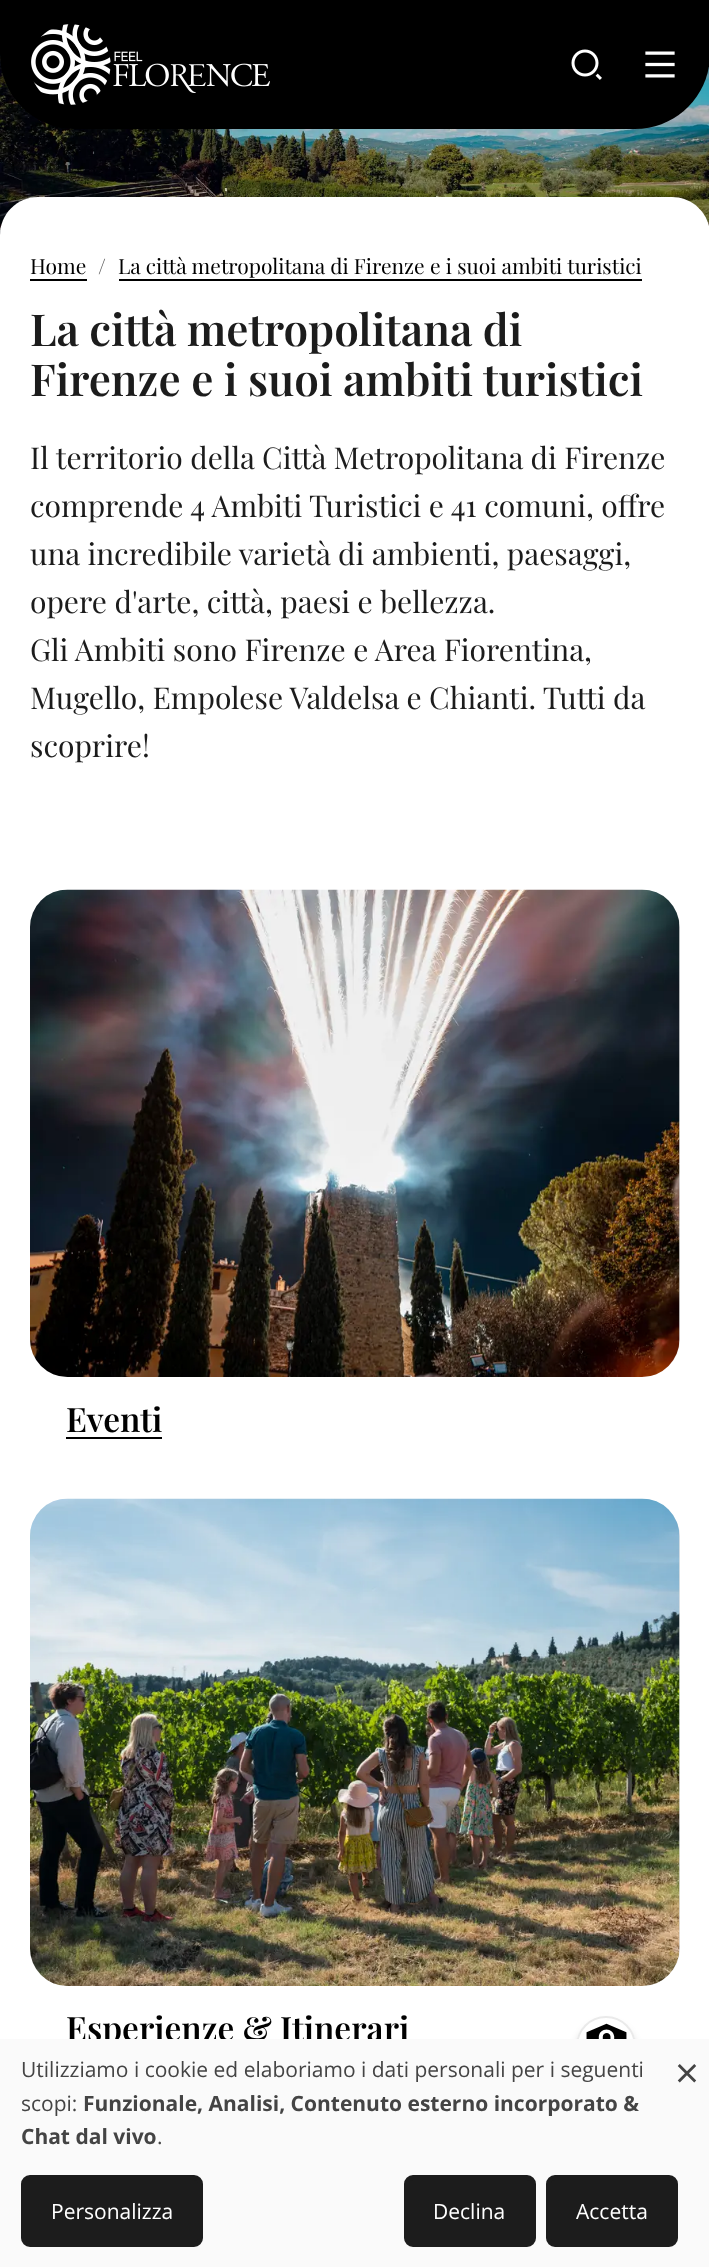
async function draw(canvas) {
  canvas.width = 709
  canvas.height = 2267
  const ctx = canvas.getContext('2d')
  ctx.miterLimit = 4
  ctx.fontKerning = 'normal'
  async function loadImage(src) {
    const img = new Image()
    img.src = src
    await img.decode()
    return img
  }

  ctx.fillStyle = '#fff'
  ctx.fillRect(0, 0, 709, 2267)
  ctx.drawImage(await loadImage('image3.png'), 0, 54, 709, 181)
  ctx.fillStyle = '#000'
  ctx.beginPath()
  ctx.moveTo(0, 0)
  ctx.lineTo(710, 0)
  ctx.lineTo(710, 54)
  ctx.bezierCurveTo(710, 95.5, 676.5, 129, 635, 129)
  ctx.lineTo(75, 129)
  ctx.bezierCurveTo(33.5, 129, 0, 95.5, 0, 54)
  ctx.closePath()
  ctx.fill()
  ctx.drawImage(await loadImage('image0.png'), 31, 24, 239, 81)
  ctx.drawImage(await loadImage('image1.png'), 571, 49, 31, 31)
  ctx.drawImage(await loadImage('image2.png'), 645, 51, 30, 27)
  ctx.fillStyle = '#fff'
  ctx.beginPath()
  ctx.moveTo(38, 197)
  ctx.lineTo(672, 197)
  ctx.bezierCurveTo(693, 197, 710, 214, 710, 235)
  ctx.lineTo(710, 806)
  ctx.lineTo(0, 806)
  ctx.lineTo(0, 235)
  ctx.bezierCurveTo(0, 214, 17, 197, 38, 197)
  ctx.closePath()
  ctx.fill()
  ctx.font = '21px Playfair Display'
  ctx.fillStyle = '#000'
  ctx.fillText('Home', 30, 274)
  ctx.fillRect(30, 279, 57, 2)
  ctx.fillStyle = '#555'
  ctx.fillText('/', 98, 274)
  ctx.fillStyle = '#000'
  ctx.fillText('La città metropolitana di Firenze e i suoi ambiti turistici', 118, 274)
  ctx.fillRect(119, 279, 523, 2)
  ctx.font = '600 44px Playfair Display'
  ctx.fillStyle = '#1c1c1c'
  ctx.fillText('La città metropolitana di', 30, 346)
  ctx.fillText('Firenze e i suoi ambiti turistici', 30, 396)
  ctx.font = '30px Playfair Display'
  ctx.fillText('Il territorio della Città Metropolitana di Firenze', 30, 469)
  ctx.fillText('comprende 4 Ambiti Turistici e 41 comuni, offre', 30, 517)
  ctx.fillText('una incredibile varietà di ambienti, paesaggi,', 30, 565)
  ctx.fillText('opere d\'arte, città, paesi e bellezza.', 30, 613)
  ctx.fillText('Gli Ambiti sono Firenze e Area Fiorentina,', 30, 661)
  ctx.fillText('Mugello, Empolese Valdelsa e Chianti. Tutti da', 30, 709)
  ctx.fillText('scoprire!', 30, 757)
  ctx.fillStyle = '#e7e7e7'
  ctx.beginPath()
  ctx.roundRect(30, 890, 650, 487, 38)
  ctx.fill()
  ctx.drawImage(await loadImage('image4.png'), 30, 889, 650, 488)
  ctx.font = '600 33.5px Playfair Display'
  ctx.fillStyle = '#000'
  ctx.fillText('Eventi', 66, 1432)
  ctx.fillRect(66, 1437, 96, 2)
  ctx.fillStyle = '#e7e7e7'
  ctx.beginPath()
  ctx.roundRect(30, 1499, 650, 487, 38)
  ctx.fill()
  ctx.drawImage(await loadImage('image5.png'), 30, 1498, 650, 488)
  ctx.fillStyle = '#000'
  ctx.fillText('Esperienze & Itinerari', 66, 2041)
  ctx.fillStyle = '#00000033'
  ctx.filter = 'blur(4px)'
  ctx.beginPath()
  ctx.roundRect(576, 2024, 60, 60, 30)
  ctx.fill()
  ctx.filter = 'none'
  ctx.fillStyle = '#fff'
  ctx.beginPath()
  ctx.arc(606, 2046, 30, 0, 2 * Math.PI)
  ctx.fill()
  ctx.drawImage(await loadImage('image6.png'), 586, 2023, 41, 16)
  ctx.beginPath()
  ctx.arc(606, 2046, 29, 0, 2 * Math.PI)
  ctx.strokeStyle = '#eaeaea'
  ctx.lineWidth = 2
  ctx.stroke()
  ctx.fillStyle = '#fafafa'
  ctx.fillRect(0, 2039, 709, 228)
  ctx.font = '21px Open Sans'
  ctx.fillStyle = '#444'
  ctx.fillText('Utilizziamo i cookie ed elaboriamo i dati personali per i seguenti', 21, 2077)
  ctx.fillText('scopi:', 21, 2111)
  ctx.font = 'bold 21px Open Sans'
  ctx.fillText('Funzionale, Analisi, Contenuto esterno incorporato &', 83, 2111)
  ctx.fillText('Chat dal vivo', 21, 2144)
  ctx.font = '21px Open Sans'
  ctx.fillText('.', 157, 2144)
  ctx.fillStyle = '#1c1c1c'
  ctx.beginPath()
  ctx.roundRect(23.5, 2177.5, 177, 67, 6.5)
  ctx.fill()
  ctx.strokeStyle = '#1c1c1c'
  ctx.lineWidth = 5
  ctx.stroke()
  ctx.fillStyle = '#fff'
  ctx.fillText('Personalizza', 51, 2219)
  ctx.fillStyle = '#1c1c1c'
  ctx.beginPath()
  ctx.roundRect(406.5, 2177.5, 127, 67, 6.5)
  ctx.fill()
  ctx.stroke()
  ctx.fillStyle = '#fff'
  ctx.fillText('Declina', 433, 2219)
  ctx.fillStyle = '#1c1c1c'
  ctx.beginPath()
  ctx.roundRect(548.5, 2177.5, 127, 67, 6.5)
  ctx.fill()
  ctx.stroke()
  ctx.fillStyle = '#fff'
  ctx.fillText('Accetta', 576, 2219)
  ctx.font = '42px Open Sans'
  ctx.fillStyle = '#444'
  ctx.fillText('×', 675, 2088)
}

draw(document.querySelector('canvas'))
